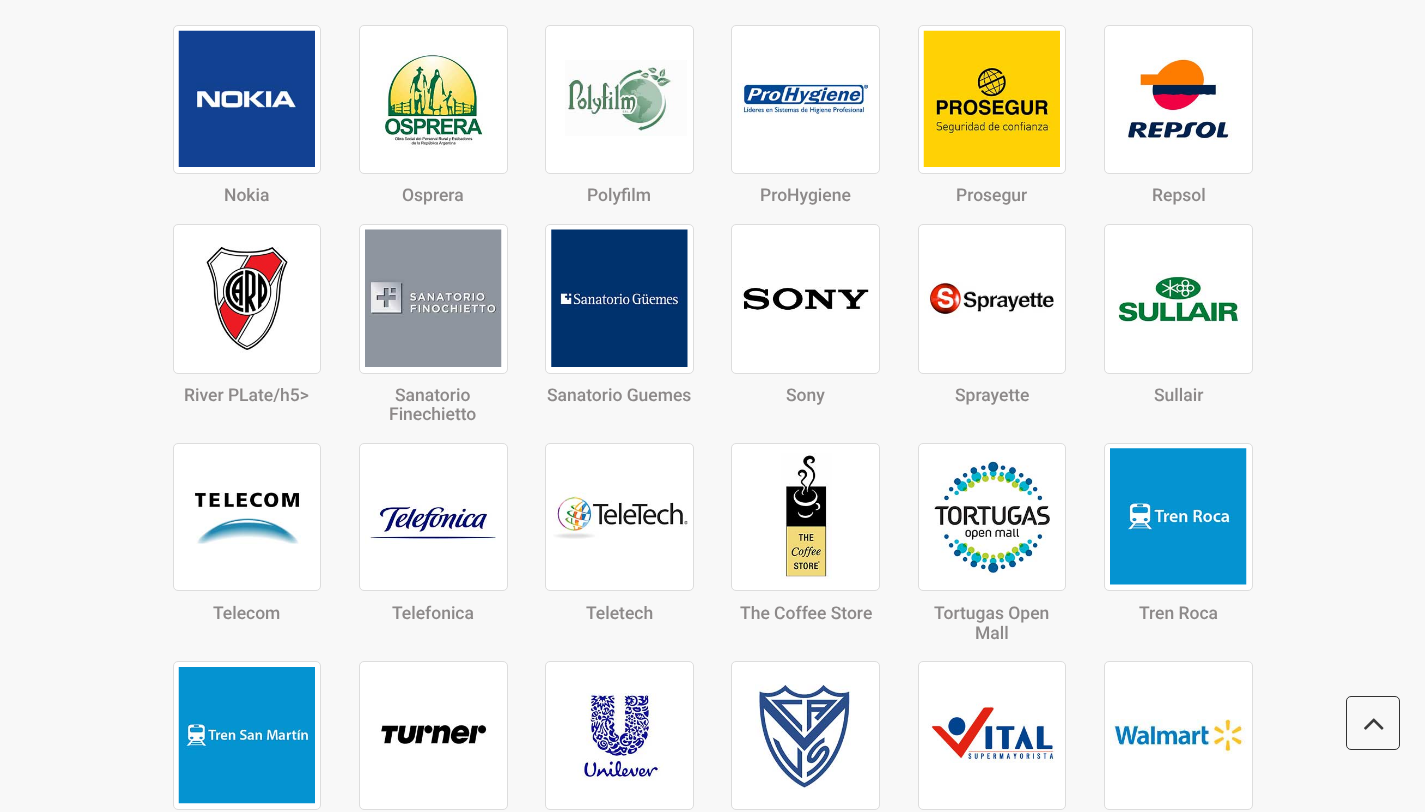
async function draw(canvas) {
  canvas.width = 1425
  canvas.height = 812
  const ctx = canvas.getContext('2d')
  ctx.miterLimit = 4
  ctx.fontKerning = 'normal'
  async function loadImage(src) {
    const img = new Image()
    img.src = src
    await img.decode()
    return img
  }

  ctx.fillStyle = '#f8f8f8'
  ctx.fillRect(0, 0, 1425, 812)
  ctx.fillStyle = '#fff'
  ctx.beginPath()
  ctx.roundRect(173.5, 25.5, 147, 148, 4.5)
  ctx.fill()
  ctx.strokeStyle = '#ddd'
  ctx.stroke()
  ctx.drawImage(await loadImage('image0.png'), 178, 30, 137, 137)
  ctx.font = '500 17.5px Roboto'
  ctx.fillStyle = '#8c8989'
  ctx.fillText('Nokia', 224, 201)
  ctx.fillStyle = '#fff'
  ctx.beginPath()
  ctx.roundRect(359.5, 25.5, 148, 148, 4.5)
  ctx.fill()
  ctx.stroke()
  ctx.drawImage(await loadImage('image1.png'), 382, 50, 105, 99)
  ctx.fillStyle = '#8c8989'
  ctx.fillText('Osprera', 402, 201)
  ctx.fillStyle = '#fff'
  ctx.beginPath()
  ctx.roundRect(545.5, 25.5, 148, 148, 4.5)
  ctx.fill()
  ctx.stroke()
  ctx.drawImage(await loadImage('image2.png'), 565, 60, 122, 76)
  ctx.fillStyle = '#8c8989'
  ctx.fillText('Polyfilm', 587, 201)
  ctx.fillStyle = '#fff'
  ctx.beginPath()
  ctx.roundRect(731.5, 25.5, 148, 148, 4.5)
  ctx.fill()
  ctx.stroke()
  ctx.drawImage(await loadImage('image3.png'), 737, 83, 132, 35)
  ctx.fillStyle = '#8c8989'
  ctx.fillText('ProHygiene', 760, 201)
  ctx.fillStyle = '#fff'
  ctx.beginPath()
  ctx.roundRect(918.5, 25.5, 147, 148, 4.5)
  ctx.fill()
  ctx.stroke()
  ctx.drawImage(await loadImage('image4.png'), 923, 30, 137, 137)
  ctx.fillStyle = '#8c8989'
  ctx.fillText('Prosegur', 956, 201)
  ctx.fillStyle = '#fff'
  ctx.beginPath()
  ctx.roundRect(1104.5, 25.5, 148, 148, 4.5)
  ctx.fill()
  ctx.stroke()
  ctx.drawImage(await loadImage('image5.png'), 1127, 57, 105, 87)
  ctx.fillStyle = '#8c8989'
  ctx.fillText('Repsol', 1152, 201)
  ctx.fillStyle = '#fff'
  ctx.beginPath()
  ctx.roundRect(173.5, 224.5, 147, 149, 4.5)
  ctx.fill()
  ctx.stroke()
  ctx.drawImage(await loadImage('image6.png'), 205, 246, 83, 107)
  ctx.fillStyle = '#8c8989'
  ctx.fillText('River PLate/h5>', 184, 401)
  ctx.fillStyle = '#fff'
  ctx.beginPath()
  ctx.roundRect(359.5, 224.5, 148, 149, 4.5)
  ctx.fill()
  ctx.stroke()
  ctx.drawImage(await loadImage('image7.png'), 365, 229, 137, 138)
  ctx.fillStyle = '#8c8989'
  ctx.fillText('Sanatorio', 395, 401)
  ctx.fillText('Finechietto', 389, 420)
  ctx.fillStyle = '#fff'
  ctx.beginPath()
  ctx.roundRect(545.5, 224.5, 148, 149, 4.5)
  ctx.fill()
  ctx.stroke()
  ctx.drawImage(await loadImage('image8.png'), 551, 229, 137, 138)
  ctx.fillStyle = '#8c8989'
  ctx.fillText('Sanatorio Guemes', 547, 401)
  ctx.fillStyle = '#fff'
  ctx.beginPath()
  ctx.roundRect(731.5, 224.5, 148, 149, 4.5)
  ctx.fill()
  ctx.stroke()
  ctx.drawImage(await loadImage('image9.png'), 742, 287, 127, 25)
  ctx.fillStyle = '#8c8989'
  ctx.fillText('Sony', 786, 401)
  ctx.fillStyle = '#fff'
  ctx.beginPath()
  ctx.roundRect(918.5, 224.5, 147, 149, 4.5)
  ctx.fill()
  ctx.stroke()
  ctx.drawImage(await loadImage('image10.png'), 924, 282, 130, 36)
  ctx.fillStyle = '#8c8989'
  ctx.fillText('Sprayette', 955, 401)
  ctx.fillStyle = '#fff'
  ctx.beginPath()
  ctx.roundRect(1104.5, 224.5, 148, 149, 4.5)
  ctx.fill()
  ctx.stroke()
  ctx.drawImage(await loadImage('image11.png'), 1118, 273, 123, 53)
  ctx.fillStyle = '#8c8989'
  ctx.fillText('Sullair', 1154, 401)
  ctx.fillStyle = '#fff'
  ctx.beginPath()
  ctx.roundRect(173.5, 443.5, 147, 147, 4.5)
  ctx.fill()
  ctx.stroke()
  ctx.drawImage(await loadImage('image12.png'), 192, 492, 109, 52)
  ctx.fillStyle = '#8c8989'
  ctx.fillText('Telecom', 213, 619)
  ctx.fillStyle = '#fff'
  ctx.beginPath()
  ctx.roundRect(359.5, 443.5, 148, 147, 4.5)
  ctx.fill()
  ctx.stroke()
  ctx.drawImage(await loadImage('image13.png'), 365, 501, 131, 43)
  ctx.fillStyle = '#8c8989'
  ctx.fillText('Telefonica', 392, 619)
  ctx.fillStyle = '#fff'
  ctx.beginPath()
  ctx.roundRect(545.5, 443.5, 148, 147, 4.5)
  ctx.fill()
  ctx.stroke()
  ctx.drawImage(await loadImage('image14.png'), 553, 492, 135, 47)
  ctx.fillStyle = '#8c8989'
  ctx.fillText('Teletech', 586, 619)
  ctx.fillStyle = '#fff'
  ctx.beginPath()
  ctx.roundRect(731.5, 443.5, 148, 147, 4.5)
  ctx.fill()
  ctx.stroke()
  ctx.drawImage(await loadImage('image15.png'), 781, 453, 51, 126)
  ctx.fillStyle = '#8c8989'
  ctx.fillText('The Coffee Store', 740, 619)
  ctx.fillStyle = '#fff'
  ctx.beginPath()
  ctx.roundRect(918.5, 443.5, 147, 147, 4.5)
  ctx.fill()
  ctx.stroke()
  ctx.drawImage(await loadImage('image16.png'), 932, 457, 118, 122)
  ctx.fillStyle = '#8c8989'
  ctx.fillText('Tortugas Open', 934, 619)
  ctx.fillText('Mall', 975, 639)
  ctx.fillStyle = '#fff'
  ctx.beginPath()
  ctx.roundRect(1104.5, 443.5, 148, 147, 4.5)
  ctx.fill()
  ctx.stroke()
  ctx.drawImage(await loadImage('image17.png'), 1110, 448, 137, 137)
  ctx.fillStyle = '#8c8989'
  ctx.fillText('Tren Roca', 1139, 619)
  ctx.fillStyle = '#fff'
  ctx.beginPath()
  ctx.roundRect(173.5, 661.5, 147, 148, 4.5)
  ctx.fill()
  ctx.stroke()
  ctx.drawImage(await loadImage('image18.png'), 178, 667, 137, 137)
  ctx.beginPath()
  ctx.roundRect(359.5, 661.5, 148, 148, 4.5)
  ctx.fill()
  ctx.stroke()
  ctx.drawImage(await loadImage('image19.png'), 379, 724, 108, 22)
  ctx.beginPath()
  ctx.roundRect(545.5, 661.5, 148, 148, 4.5)
  ctx.fill()
  ctx.stroke()
  ctx.drawImage(await loadImage('image20.png'), 577, 693, 87, 88)
  ctx.beginPath()
  ctx.roundRect(731.5, 661.5, 148, 148, 4.5)
  ctx.fill()
  ctx.stroke()
  ctx.drawImage(await loadImage('image21.png'), 755, 684, 96, 105)
  ctx.beginPath()
  ctx.roundRect(918.5, 661.5, 147, 148, 4.5)
  ctx.fill()
  ctx.stroke()
  ctx.drawImage(await loadImage('image22.png'), 928, 702, 127, 61)
  ctx.beginPath()
  ctx.roundRect(1104.5, 661.5, 148, 148, 4.5)
  ctx.fill()
  ctx.stroke()
  ctx.drawImage(await loadImage('image23.png'), 1110, 719, 137, 36)
  ctx.beginPath()
  ctx.roundRect(1346.5, 696.5, 53, 53, 4.5)
  ctx.strokeStyle = '#333'
  ctx.stroke()
  ctx.drawImage(await loadImage('image24.png'), 1364, 718, 20, 12)
}

draw(document.querySelector('canvas'))
